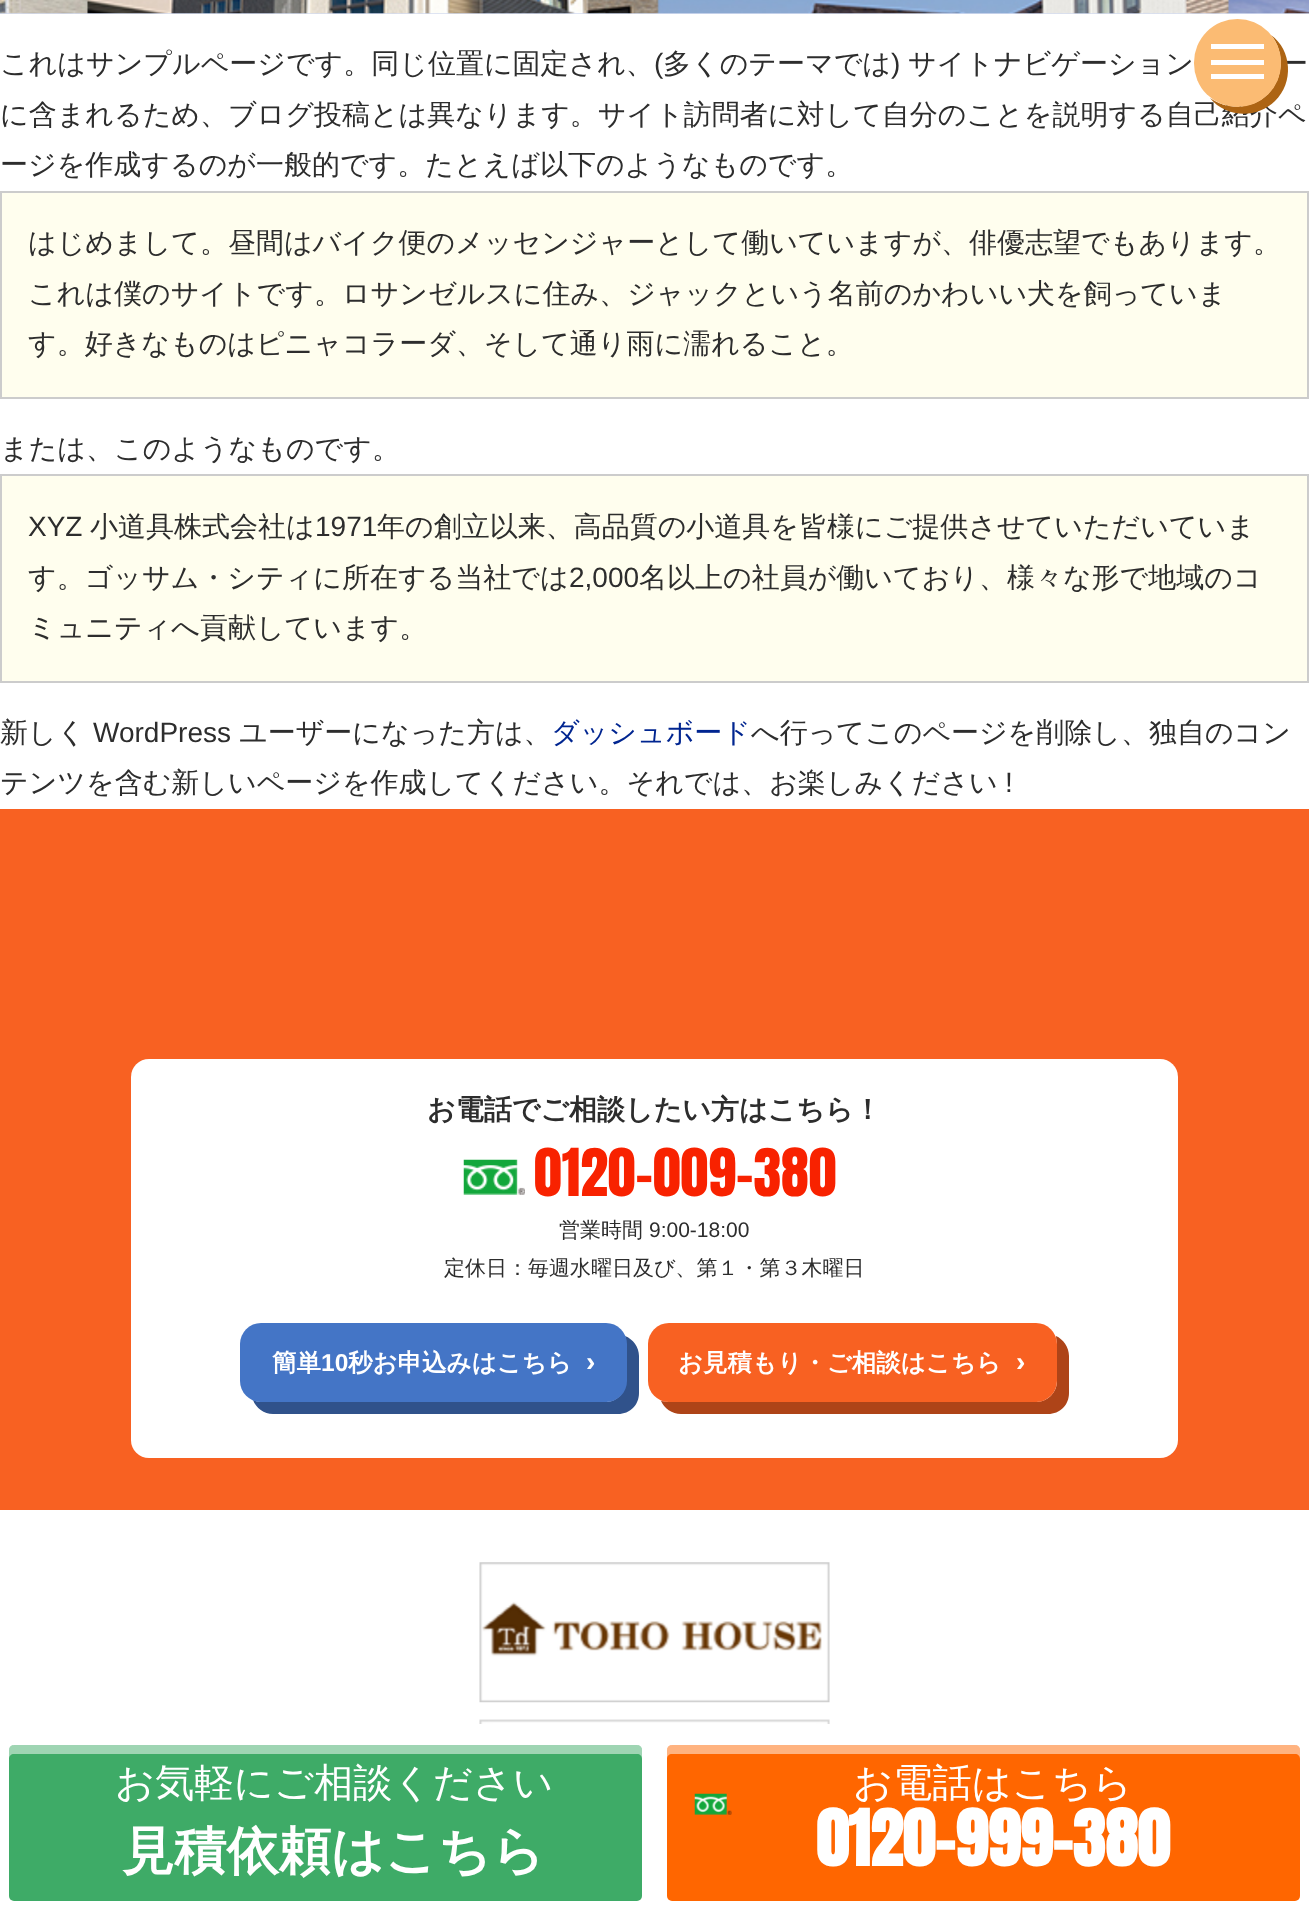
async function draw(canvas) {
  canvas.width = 1309
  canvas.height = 1909
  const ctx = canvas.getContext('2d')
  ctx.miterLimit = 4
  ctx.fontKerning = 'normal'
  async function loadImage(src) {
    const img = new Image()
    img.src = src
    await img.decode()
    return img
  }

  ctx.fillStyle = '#fff'
  ctx.fillRect(0, 0, 1309, 1909)
  ctx.fillStyle = '#d5dcf1'
  ctx.fillRect(0, 13, 1309, 1)
  ctx.drawImage(await loadImage('image0.png'), 0, 0, 1309, 14)
  ctx.font = '500 28px WenQuanYi Zen Hei'
  ctx.fillStyle = '#2d2d2d'
  ctx.fillText('ー', 1280, 73)
  ctx.fillText('に含まれるため、ブログ投稿とは異なります。サイト訪問者に対して自分のことを説明する自己紹介ペ', 0, 124)
  ctx.fillStyle = '#ad6413'
  ctx.beginPath()
  ctx.moveTo(1210, 98)
  ctx.bezierCurveTo(1226, 118, 1257, 119, 1275, 101)
  ctx.bezierCurveTo(1294, 83, 1292, 50, 1271, 35)
  ctx.bezierCurveTo(1285, 52, 1284, 78, 1268, 94)
  ctx.bezierCurveTo(1253, 109, 1228, 111, 1210, 98)
  ctx.closePath()
  ctx.fill()
  ctx.fillStyle = '#fbbb73'
  ctx.beginPath()
  ctx.roundRect(1194, 19, 87, 88, 43.5)
  ctx.fill()
  ctx.fillStyle = '#fff'
  ctx.fillRect(1211, 44, 53, 5)
  ctx.fillRect(1211, 60, 53, 5)
  ctx.fillRect(1211, 74, 53, 5)
  ctx.fillStyle = '#2d2d2d'
  ctx.fillText('これはサンプルページです。同じ位置に固定され、', 0, 73)
  ctx.font = '28px Liberation Sans'
  ctx.fillText('(', 654, 73)
  ctx.font = '500 28px WenQuanYi Zen Hei'
  ctx.fillText('多くのテーマでは', 663, 73)
  ctx.font = '28px Liberation Sans'
  ctx.fillText(')', 891, 73)
  ctx.font = '500 28px WenQuanYi Zen Hei'
  ctx.fillText('サイトナビゲーション', 908, 73)
  ctx.fillText('ージを作成するのが一般的です。たとえば以下のようなものです。', 0, 174)
  ctx.fillStyle = '#fffeee'
  ctx.beginPath()
  ctx.rect(1, 192, 1307, 206)
  ctx.fill()
  ctx.strokeStyle = '#ccc'
  ctx.lineWidth = 2
  ctx.stroke()
  ctx.fillStyle = '#2d2d2d'
  ctx.fillText('はじめまして。昼間はバイク便のメッセンジャーとして働いていますが、俳優志望でもあります。', 28, 252)
  ctx.fillText('これは僕のサイトです。ロサンゼルスに住み、ジャックという名前のかわいい犬を飼っていま', 28, 303)
  ctx.fillText('す。好きなものはピニャコラーダ、そして通り雨に濡れること。', 28, 353)
  ctx.fillText('または、このようなものです。', 0, 458)
  ctx.fillStyle = '#fffeee'
  ctx.beginPath()
  ctx.rect(1, 475, 1307, 207)
  ctx.fill()
  ctx.stroke()
  ctx.font = '28px Liberation Sans'
  ctx.fillStyle = '#2d2d2d'
  ctx.fillText('XYZ', 28, 536)
  ctx.font = '500 28px WenQuanYi Zen Hei'
  ctx.fillText('小道具株式会社は', 90, 536)
  ctx.font = '28px Liberation Sans'
  ctx.fillText('1971', 315, 536)
  ctx.font = '500 28px WenQuanYi Zen Hei'
  ctx.fillText('年の創立以来、高品質の小道具を皆様にご提供させていただいていま', 377, 536)
  ctx.fillText('す。ゴッサム・シティに所在する当社では', 28, 587)
  ctx.font = '28px Liberation Sans'
  ctx.fillText('2,000', 569, 587)
  ctx.font = '500 28px WenQuanYi Zen Hei'
  ctx.fillText('名以上の社員が働いており、様々な形で地域のコ', 639, 587)
  ctx.fillText('ミュニティへ貢献しています。', 28, 637)
  ctx.fillText('新しく', 0, 742)
  ctx.font = '28px Liberation Sans'
  ctx.fillText('WordPress', 93, 742)
  ctx.font = '500 28px WenQuanYi Zen Hei'
  ctx.fillText('ユーザーになった方は、', 239, 742)
  ctx.fillStyle = '#002590'
  ctx.fillText('ダッシュボード', 551, 742)
  ctx.fillStyle = '#2d2d2d'
  ctx.fillText('へ行ってこのページを削除し、独自のコン', 751, 742)
  ctx.fillText('テンツを含む新しいページを作成してください。それでは、お楽しみください', 0, 792)
  ctx.font = '28px Liberation Sans'
  ctx.fillText('!', 1005, 792)
  ctx.fillStyle = '#f86122'
  ctx.fillRect(0, 809, 1309, 701)
  ctx.fillStyle = '#fff'
  ctx.beginPath()
  ctx.roundRect(131, 1059, 1047, 399, 18)
  ctx.fill()
  ctx.font = 'bold 28px WenQuanYi Zen Hei'
  ctx.fillStyle = '#2d2d2d'
  ctx.fillText('お電話でご相談したい方はこちら！', 427, 1119)
  ctx.drawImage(await loadImage('image1.png'), 463, 1159, 62, 36)
  ctx.font = '56px Anton'
  ctx.fillStyle = '#f82200'
  ctx.fillText('0120-009-380', 534, 1196)
  ctx.font = '500 21px WenQuanYi Zen Hei'
  ctx.fillStyle = '#2d2d2d'
  ctx.fillText('営業時間', 559, 1237)
  ctx.font = '21px Liberation Sans'
  ctx.fillText('9:00-18:00', 649, 1237)
  ctx.font = '500 21px WenQuanYi Zen Hei'
  ctx.fillText('定休日：毎週水曜日及び、第１・第３木曜日', 444, 1275)
  ctx.fillStyle = '#30528b'
  ctx.beginPath()
  ctx.moveTo(253, 1400)
  ctx.bezierCurveTo(256, 1408, 264, 1414, 273, 1414)
  ctx.lineTo(618, 1414)
  ctx.bezierCurveTo(630, 1414, 639, 1405, 639, 1393)
  ctx.lineTo(639, 1356)
  ctx.bezierCurveTo(639, 1347, 633, 1339, 625, 1336)
  ctx.bezierCurveTo(626, 1339, 626, 1341, 626, 1344)
  ctx.lineTo(626, 1381)
  ctx.bezierCurveTo(626, 1392, 617, 1402, 606, 1402)
  ctx.lineTo(261, 1402)
  ctx.bezierCurveTo(258, 1402, 256, 1401, 253, 1400)
  ctx.closePath()
  ctx.fill()
  ctx.fillStyle = '#4475c6'
  ctx.beginPath()
  ctx.roundRect(240, 1323, 387, 79, 21)
  ctx.fill()
  ctx.font = 'bold 24.5px WenQuanYi Zen Hei'
  ctx.fillStyle = '#fff'
  ctx.fillText('簡単', 272, 1371)
  ctx.font = 'bold 24.5px Liberation Sans'
  ctx.fillText('10', 321, 1371)
  ctx.font = 'bold 24.5px WenQuanYi Zen Hei'
  ctx.fillText('秒お申込みはこちら', 348, 1371)
  ctx.font = 'bold 28px Liberation Sans'
  ctx.fillText('›', 586, 1371)
  ctx.fillStyle = '#ae4418'
  ctx.beginPath()
  ctx.moveTo(661, 1401)
  ctx.bezierCurveTo(664, 1408, 672, 1414, 681, 1414)
  ctx.lineTo(1048, 1414)
  ctx.bezierCurveTo(1060, 1414, 1069, 1405, 1069, 1393)
  ctx.lineTo(1069, 1356)
  ctx.bezierCurveTo(1069, 1347, 1063, 1339, 1056, 1336)
  ctx.bezierCurveTo(1056, 1339, 1057, 1341, 1057, 1344)
  ctx.lineTo(1057, 1381)
  ctx.bezierCurveTo(1057, 1392, 1048, 1402, 1036, 1402)
  ctx.lineTo(668, 1402)
  ctx.bezierCurveTo(666, 1402, 664, 1401, 661, 1401)
  ctx.closePath()
  ctx.fill()
  ctx.fillStyle = '#f86122'
  ctx.beginPath()
  ctx.roundRect(648, 1323, 409, 79, 21)
  ctx.fill()
  ctx.font = 'bold 24.5px WenQuanYi Zen Hei'
  ctx.fillStyle = '#fff'
  ctx.fillText('お見積もり・ご相談はこちら', 678, 1371)
  ctx.font = 'bold 28px Liberation Sans'
  ctx.fillText('›', 1016, 1371)
  ctx.drawImage(await loadImage('image2.png'), 479, 1562, 351, 141)
  ctx.drawImage(await loadImage('image3.png'), 479, 1719, 351, 5)
  ctx.fillStyle = '#3eab67'
  ctx.beginPath()
  ctx.roundRect(9, 1745, 633, 156, 5)
  ctx.fill()
  ctx.fillStyle = '#ffffff80'
  ctx.beginPath()
  ctx.moveTo(14, 1754)
  ctx.bezierCurveTo(11, 1754, 9, 1756, 9, 1759)
  ctx.lineTo(9, 1750)
  ctx.bezierCurveTo(9, 1747, 11, 1745, 14, 1745)
  ctx.lineTo(637, 1745)
  ctx.bezierCurveTo(640, 1745, 642, 1747, 642, 1750)
  ctx.lineTo(642, 1759)
  ctx.bezierCurveTo(642, 1756, 640, 1754, 637, 1754)
  ctx.closePath()
  ctx.fill()
  ctx.font = '500 39.25px WenQuanYi Zen Hei'
  ctx.fillStyle = '#fff'
  ctx.fillText('お気軽にご相談ください', 115, 1796)
  ctx.font = 'bold 52.25px WenQuanYi Zen Hei'
  ctx.fillText('見積依頼はこちら', 122, 1869)
  ctx.fillStyle = '#f60'
  ctx.beginPath()
  ctx.roundRect(667, 1745, 633, 156, 5)
  ctx.fill()
  ctx.drawImage(await loadImage('image4.png'), 694, 1793, 38, 22)
  ctx.fillStyle = '#ffffff80'
  ctx.beginPath()
  ctx.moveTo(672, 1754)
  ctx.bezierCurveTo(669, 1754, 667, 1756, 667, 1759)
  ctx.lineTo(667, 1750)
  ctx.bezierCurveTo(667, 1747, 669, 1745, 672, 1745)
  ctx.lineTo(1295, 1745)
  ctx.bezierCurveTo(1298, 1745, 1300, 1747, 1300, 1750)
  ctx.lineTo(1300, 1759)
  ctx.bezierCurveTo(1300, 1756, 1298, 1754, 1295, 1754)
  ctx.closePath()
  ctx.fill()
  ctx.font = '500 39.25px WenQuanYi Zen Hei'
  ctx.fillStyle = '#fff'
  ctx.fillText('お電話はこちら', 853, 1796)
  ctx.font = 'bold 65.5px Anton'
  ctx.fillText('0120-999-380', 816, 1866)
}

draw(document.querySelector('canvas'))
